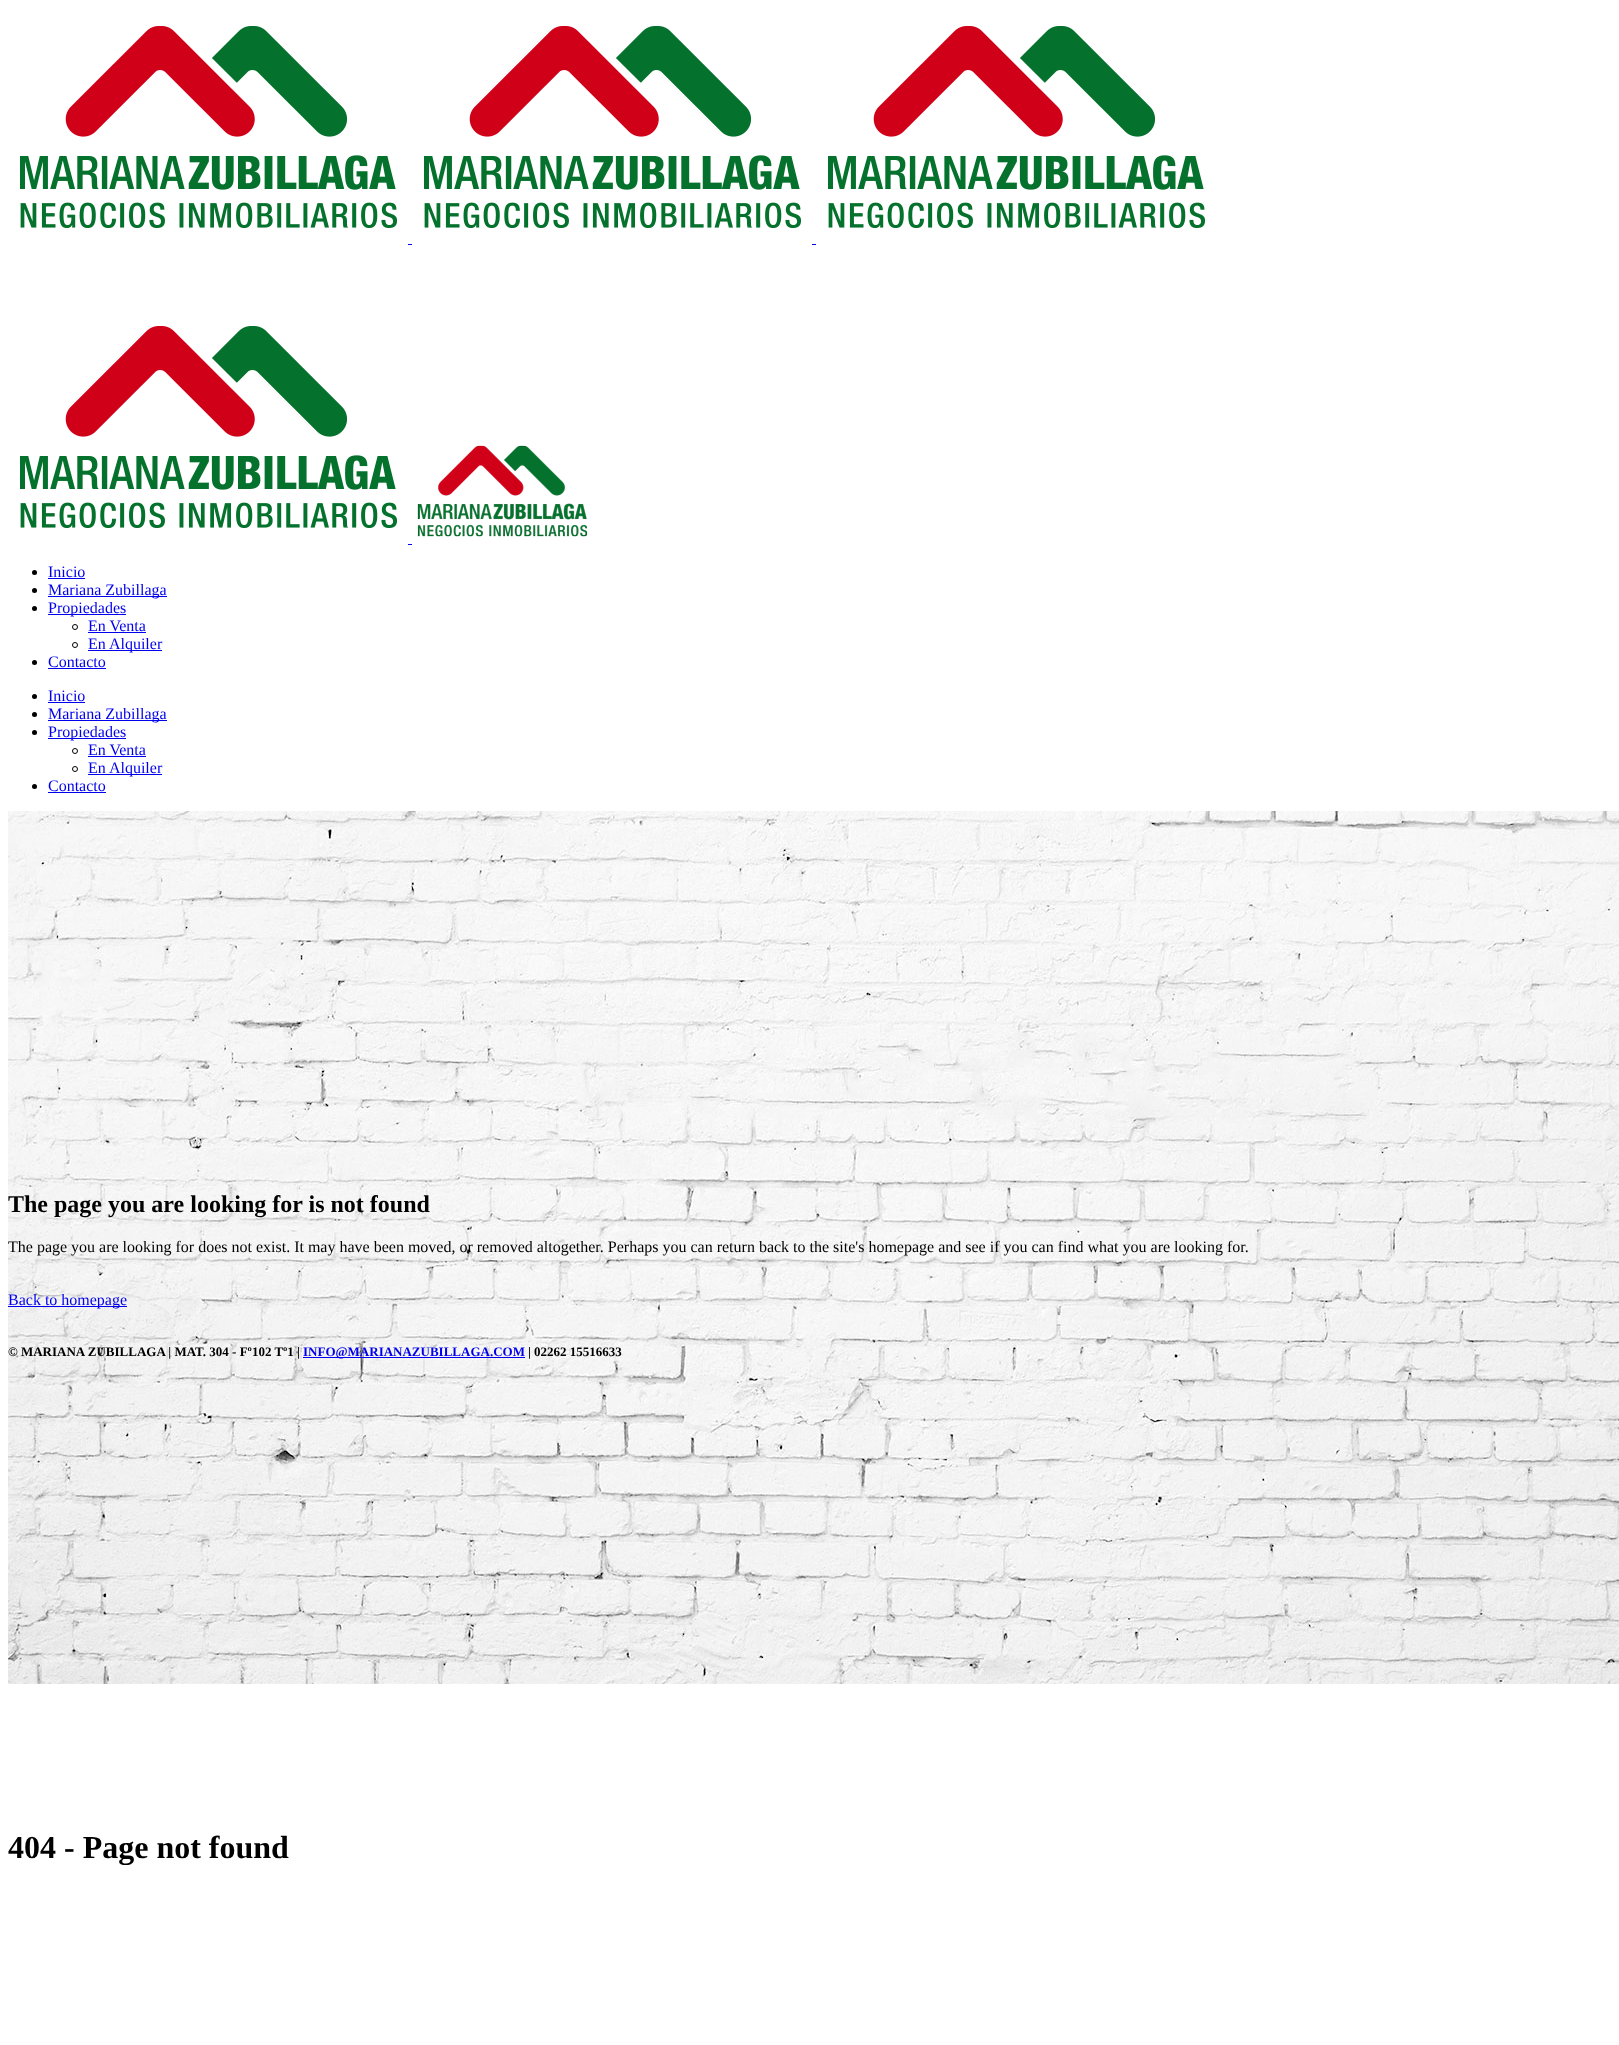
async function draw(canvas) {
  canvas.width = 1619
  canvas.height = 2045
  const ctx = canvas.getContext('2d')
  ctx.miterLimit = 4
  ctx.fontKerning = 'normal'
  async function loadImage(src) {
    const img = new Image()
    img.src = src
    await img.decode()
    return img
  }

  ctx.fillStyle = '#fff'
  ctx.fillRect(0, 0, 1619, 2045)
  ctx.drawImage(await loadImage('image0.png'), 20, 26, 377, 202)
  ctx.drawImage(await loadImage('image0.png'), 424, 26, 377, 202)
  ctx.drawImage(await loadImage('image0.png'), 828, 26, 377, 202)
  ctx.fillStyle = '#00e'
  ctx.fillRect(408, 244, 4, 1)
  ctx.fillRect(812, 244, 4, 1)
  ctx.drawImage(await loadImage('image0.png'), 20, 326, 377, 202)
  ctx.drawImage(await loadImage('image1.png'), 417, 445, 171, 92)
  ctx.fillRect(408, 544, 4, 1)
  ctx.fillStyle = '#000'
  ctx.beginPath()
  ctx.arc(34.5, 572.5, 2.5, 0, 2 * Math.PI)
  ctx.fill()
  ctx.font = '16px Liberation Serif'
  ctx.fillStyle = '#00e'
  ctx.fillText('Inicio', 48, 577)
  ctx.fillRect(48, 578, 37, 1)
  ctx.fillStyle = '#000'
  ctx.beginPath()
  ctx.arc(34.5, 590.5, 2.5, 0, 2 * Math.PI)
  ctx.fill()
  ctx.fillStyle = '#00e'
  ctx.fillRect(48, 596, 119, 1)
  ctx.fillText('Mariana Zubillaga', 48, 595)
  ctx.fillStyle = '#000'
  ctx.beginPath()
  ctx.arc(34.5, 608.5, 2.5, 0, 2 * Math.PI)
  ctx.fill()
  ctx.fillStyle = '#00e'
  ctx.fillRect(48, 614, 78, 1)
  ctx.fillText('Propiedades', 48, 613)
  ctx.beginPath()
  ctx.arc(75, 627, 2.5, 0, 2 * Math.PI)
  ctx.strokeStyle = '#000'
  ctx.stroke()
  ctx.fillText('En Venta', 88, 631)
  ctx.fillRect(88, 632, 58, 1)
  ctx.beginPath()
  ctx.arc(75, 645, 2.5, 0, 2 * Math.PI)
  ctx.stroke()
  ctx.fillRect(88, 650, 74, 1)
  ctx.fillText('En Alquiler', 88, 649)
  ctx.fillStyle = '#000'
  ctx.beginPath()
  ctx.arc(34.5, 662.5, 2.5, 0, 2 * Math.PI)
  ctx.fill()
  ctx.fillStyle = '#00e'
  ctx.fillText('Contacto', 48, 667)
  ctx.fillRect(48, 668, 58, 1)
  ctx.fillStyle = '#000'
  ctx.beginPath()
  ctx.arc(34.5, 696.5, 2.5, 0, 2 * Math.PI)
  ctx.fill()
  ctx.fillStyle = '#00e'
  ctx.fillText('Inicio', 48, 701)
  ctx.fillRect(48, 702, 37, 1)
  ctx.fillStyle = '#000'
  ctx.beginPath()
  ctx.arc(34.5, 714.5, 2.5, 0, 2 * Math.PI)
  ctx.fill()
  ctx.fillStyle = '#00e'
  ctx.fillRect(48, 720, 119, 1)
  ctx.fillText('Mariana Zubillaga', 48, 719)
  ctx.fillStyle = '#000'
  ctx.beginPath()
  ctx.arc(34.5, 732.5, 2.5, 0, 2 * Math.PI)
  ctx.fill()
  ctx.fillStyle = '#00e'
  ctx.fillRect(48, 738, 78, 1)
  ctx.fillText('Propiedades', 48, 737)
  ctx.beginPath()
  ctx.arc(75, 751, 2.5, 0, 2 * Math.PI)
  ctx.stroke()
  ctx.fillText('En Venta', 88, 755)
  ctx.fillRect(88, 756, 58, 1)
  ctx.beginPath()
  ctx.arc(75, 769, 2.5, 0, 2 * Math.PI)
  ctx.stroke()
  ctx.fillRect(88, 774, 74, 1)
  ctx.fillText('En Alquiler', 88, 773)
  ctx.fillStyle = '#000'
  ctx.beginPath()
  ctx.arc(34.5, 786.5, 2.5, 0, 2 * Math.PI)
  ctx.fill()
  ctx.fillStyle = '#00e'
  ctx.fillText('Contacto', 48, 791)
  ctx.fillRect(48, 792, 58, 1)
  ctx.drawImage(await loadImage('image2.png'), 8, 811, 1611, 873)
  ctx.font = 'bold 24px Liberation Serif'
  ctx.fillStyle = '#000'
  ctx.fillText('The page you are looking for is not found', 8, 1212)
  ctx.font = '16px Liberation Serif'
  ctx.fillText('The page you are looking for does not exist. It may have been moved, or removed altogether. Perhaps you can return back to the site\'s homepage and see if you can find what you are looking for.', 8, 1252)
  ctx.fillStyle = '#00e'
  ctx.fillRect(8, 1306, 119, 1)
  ctx.fillText('Back to homepage', 8, 1305)
  ctx.font = 'bold 32px Liberation Serif'
  ctx.fillStyle = '#000'
  ctx.fillText('404 - Page not found', 8, 1858)
  ctx.font = 'bold 13px Liberation Serif'
  ctx.fillText('© MARIANA ZUBILLAGA | MAT. 304 - Fº102 Tº1 |', 8, 1356)
  ctx.fillStyle = '#00e'
  ctx.fillRect(303, 1357, 222, 1)
  ctx.fillText('INFO@MARIANAZUBILLAGA.COM', 303, 1356)
  ctx.fillStyle = '#000'
  ctx.fillText('| 02262 15516633', 528, 1356)
}

draw(document.querySelector('canvas'))
